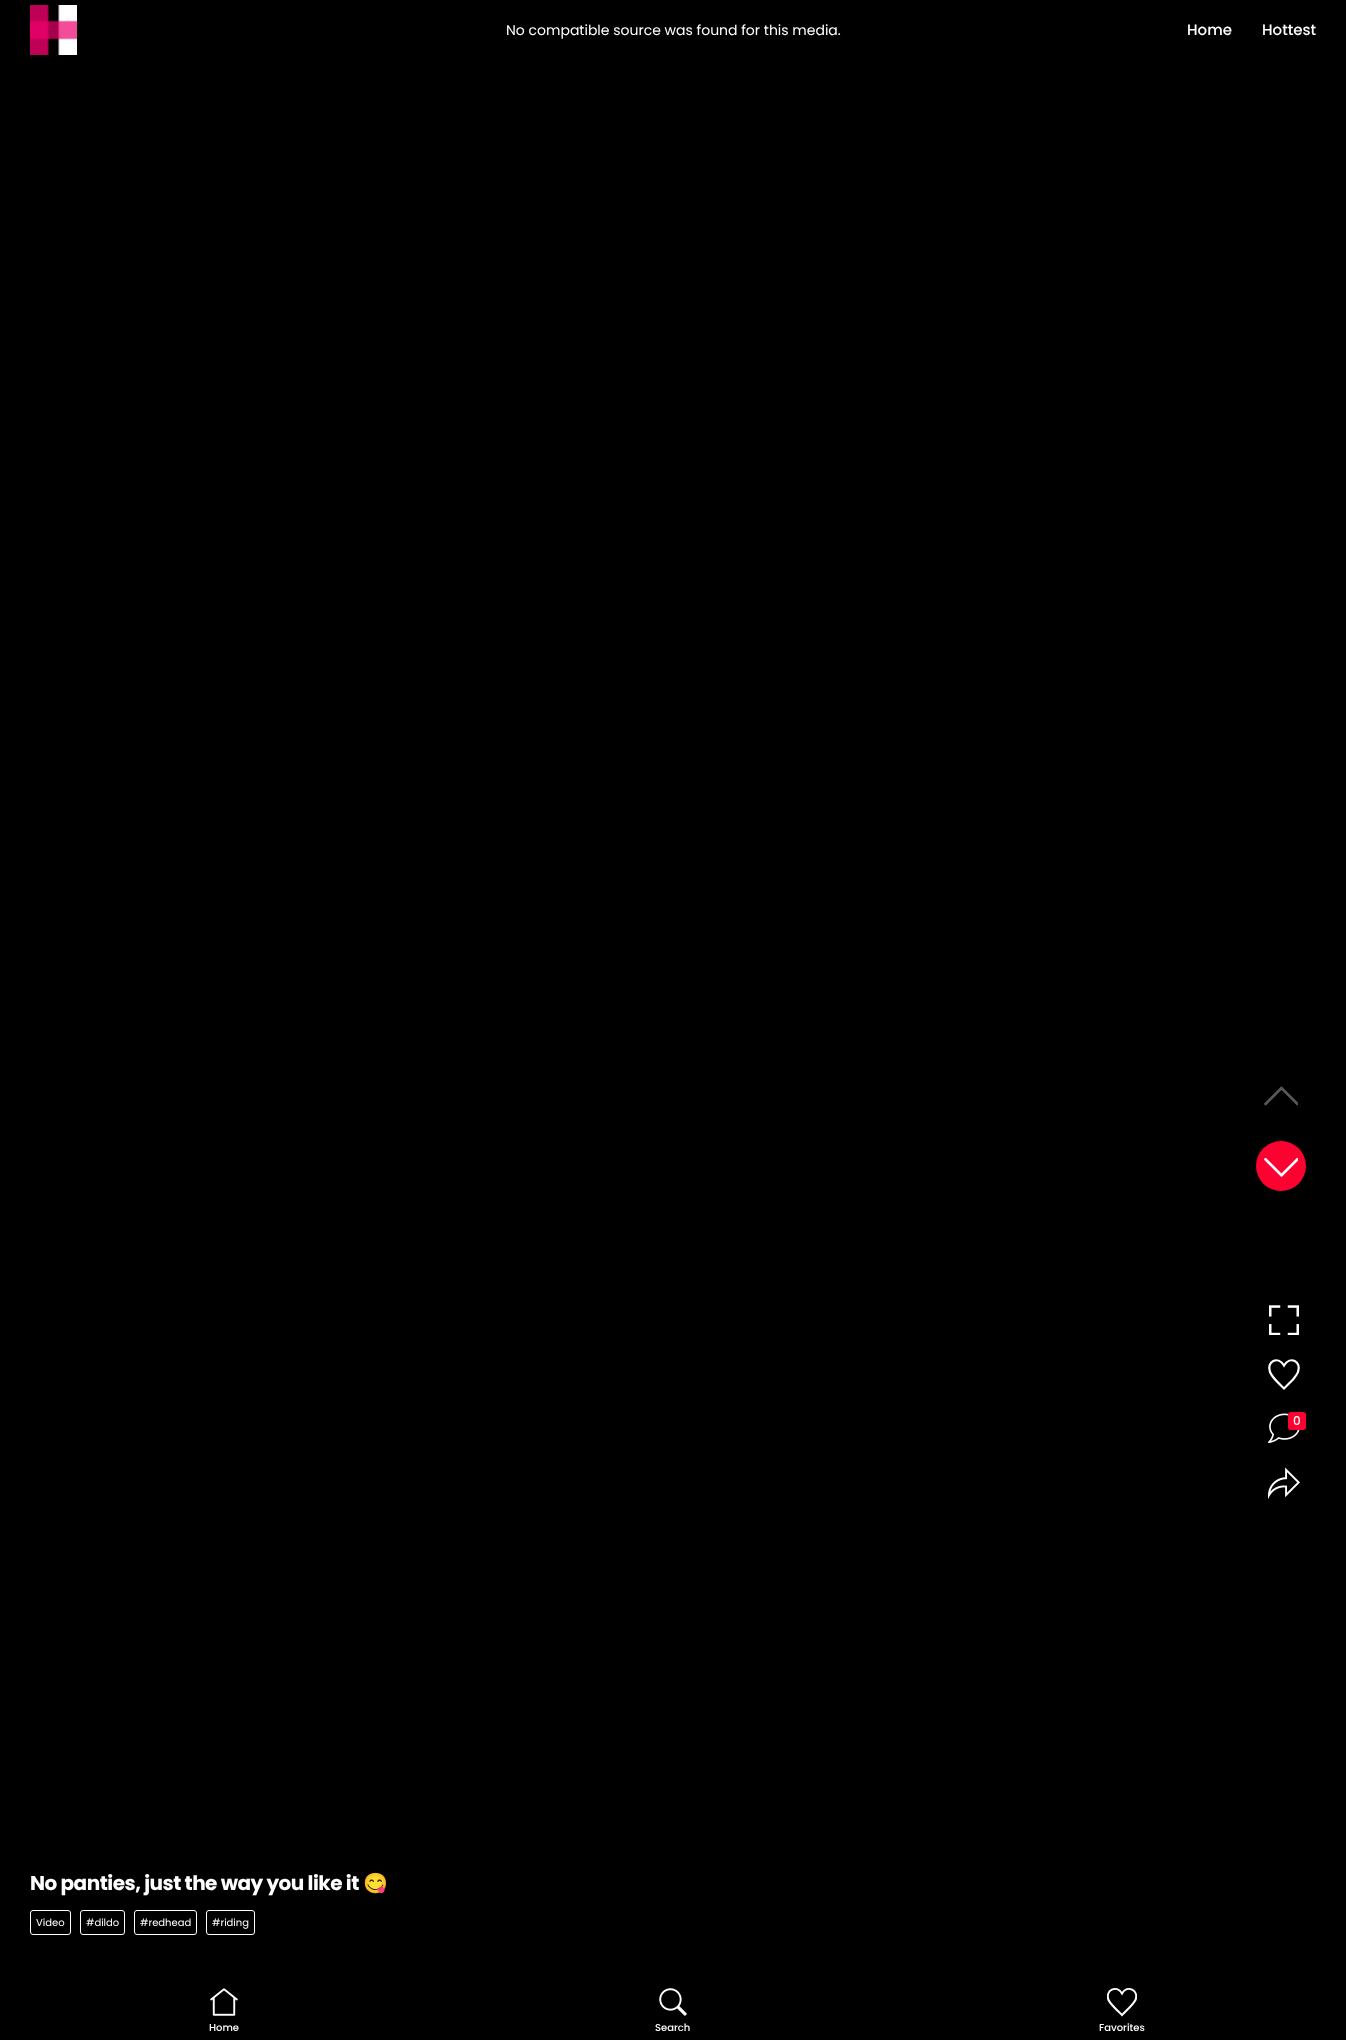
async function draw(canvas) {
  canvas.width = 1346
  canvas.height = 2040
  const ctx = canvas.getContext('2d')
  ctx.miterLimit = 4
  ctx.fontKerning = 'normal'
  async function loadImage(src) {
    const img = new Image()
    img.src = src
    await img.decode()
    return img
  }

  ctx.fillStyle = '#000'
  ctx.fillRect(0, 0, 1346, 2040)
  ctx.font = '14px Poppins'
  ctx.fillStyle = '#fff'
  ctx.fillText('No compatible source was found for this media.', 506, 35)
  ctx.drawImage(await loadImage('image0.png'), 1269, 1305, 30, 30)
  ctx.beginPath()
  ctx.moveTo(1292.5, 1380)
  ctx.lineTo(1284, 1388.5)
  ctx.bezierCurveTo(1279.5, 1384, 1272, 1377.5, 1270, 1372)
  ctx.bezierCurveTo(1266, 1361.5, 1278, 1355.5, 1284, 1365.5)
  ctx.bezierCurveTo(1290, 1355.5, 1302, 1361.5, 1298, 1372)
  ctx.bezierCurveTo(1297, 1375, 1294.5, 1377.5, 1292.5, 1380)
  ctx.closePath()
  ctx.strokeStyle = '#fff'
  ctx.lineWidth = 2.2
  ctx.stroke()
  ctx.drawImage(await loadImage('image1.png'), 1268, 1413, 32, 31)
  ctx.fillStyle = '#fd0131'
  ctx.beginPath()
  ctx.roundRect(1288, 1412, 18, 18, 3)
  ctx.fill()
  ctx.font = '500 12px Poppins'
  ctx.fillStyle = '#fff'
  ctx.fillText('0', 1293, 1425)
  ctx.drawImage(await loadImage('image2.png'), 1268, 1467, 32, 32)
  ctx.letterSpacing = '-0.5px'
  ctx.font = 'bold 20px Poppins'
  ctx.fillText('No panties, just the way you like it', 30, 1890)
  ctx.font = 'bold 20px Noto Color Emoji'
  ctx.fillText('😋', 363, 1890)
  ctx.beginPath()
  ctx.roundRect(30.5, 1910.5, 40, 24, 2.5)
  ctx.lineWidth = 1
  ctx.stroke()
  ctx.letterSpacing = '0px'
  ctx.font = '10px Poppins'
  ctx.fillText('Video', 36, 1926)
  ctx.beginPath()
  ctx.roundRect(80.5, 1910.5, 44, 24, 2.5)
  ctx.stroke()
  ctx.fillText('#dildo', 86, 1926)
  ctx.beginPath()
  ctx.roundRect(134.5, 1910.5, 62, 24, 2.5)
  ctx.stroke()
  ctx.fillText('#redhead', 140, 1926)
  ctx.beginPath()
  ctx.roundRect(206.5, 1910.5, 48, 24, 2.5)
  ctx.stroke()
  ctx.fillText('#riding', 212, 1926)
  ctx.drawImage(await loadImage('image3.png'), 1264, 1086, 34, 20)
  ctx.fillStyle = '#fd0131'
  ctx.beginPath()
  ctx.arc(1281, 1166, 25, 0, 2 * Math.PI)
  ctx.fill()
  ctx.drawImage(await loadImage('image4.png'), 1264, 1157, 34, 20)
  ctx.drawImage(await loadImage('image5.png'), 30, 5, 47, 50)
  ctx.font = '500 15px Poppins'
  ctx.fillStyle = '#fff'
  ctx.fillText('Home', 1187, 35)
  ctx.fillText('Hottest', 1262, 35)
  ctx.drawImage(await loadImage('image6.png'), 210, 1988, 28, 28)
  ctx.font = '500 10px Poppins'
  ctx.fillText('Home', 209, 2031)
  ctx.drawImage(await loadImage('image7.png'), 659, 1988, 28, 28)
  ctx.fillText('Search', 655, 2031)
  ctx.save()
  ctx.beginPath()
  ctx.rect(1107, 1987, 30, 30)
  ctx.clip()
  ctx.beginPath()
  ctx.moveTo(1130, 2007)
  ctx.lineTo(1122, 2015)
  ctx.bezierCurveTo(1118, 2011, 1111, 2005, 1108.5, 2000)
  ctx.bezierCurveTo(1105, 1990, 1116.5, 1984.5, 1122, 1993.5)
  ctx.bezierCurveTo(1127.5, 1984.5, 1139, 1990, 1135.5, 2000)
  ctx.bezierCurveTo(1134, 2002.5, 1132, 2005, 1130, 2007)
  ctx.closePath()
  ctx.lineWidth = 2.1
  ctx.stroke()
  ctx.restore()
  ctx.fillText('Favorites', 1099, 2031)
}

draw(document.querySelector('canvas'))
